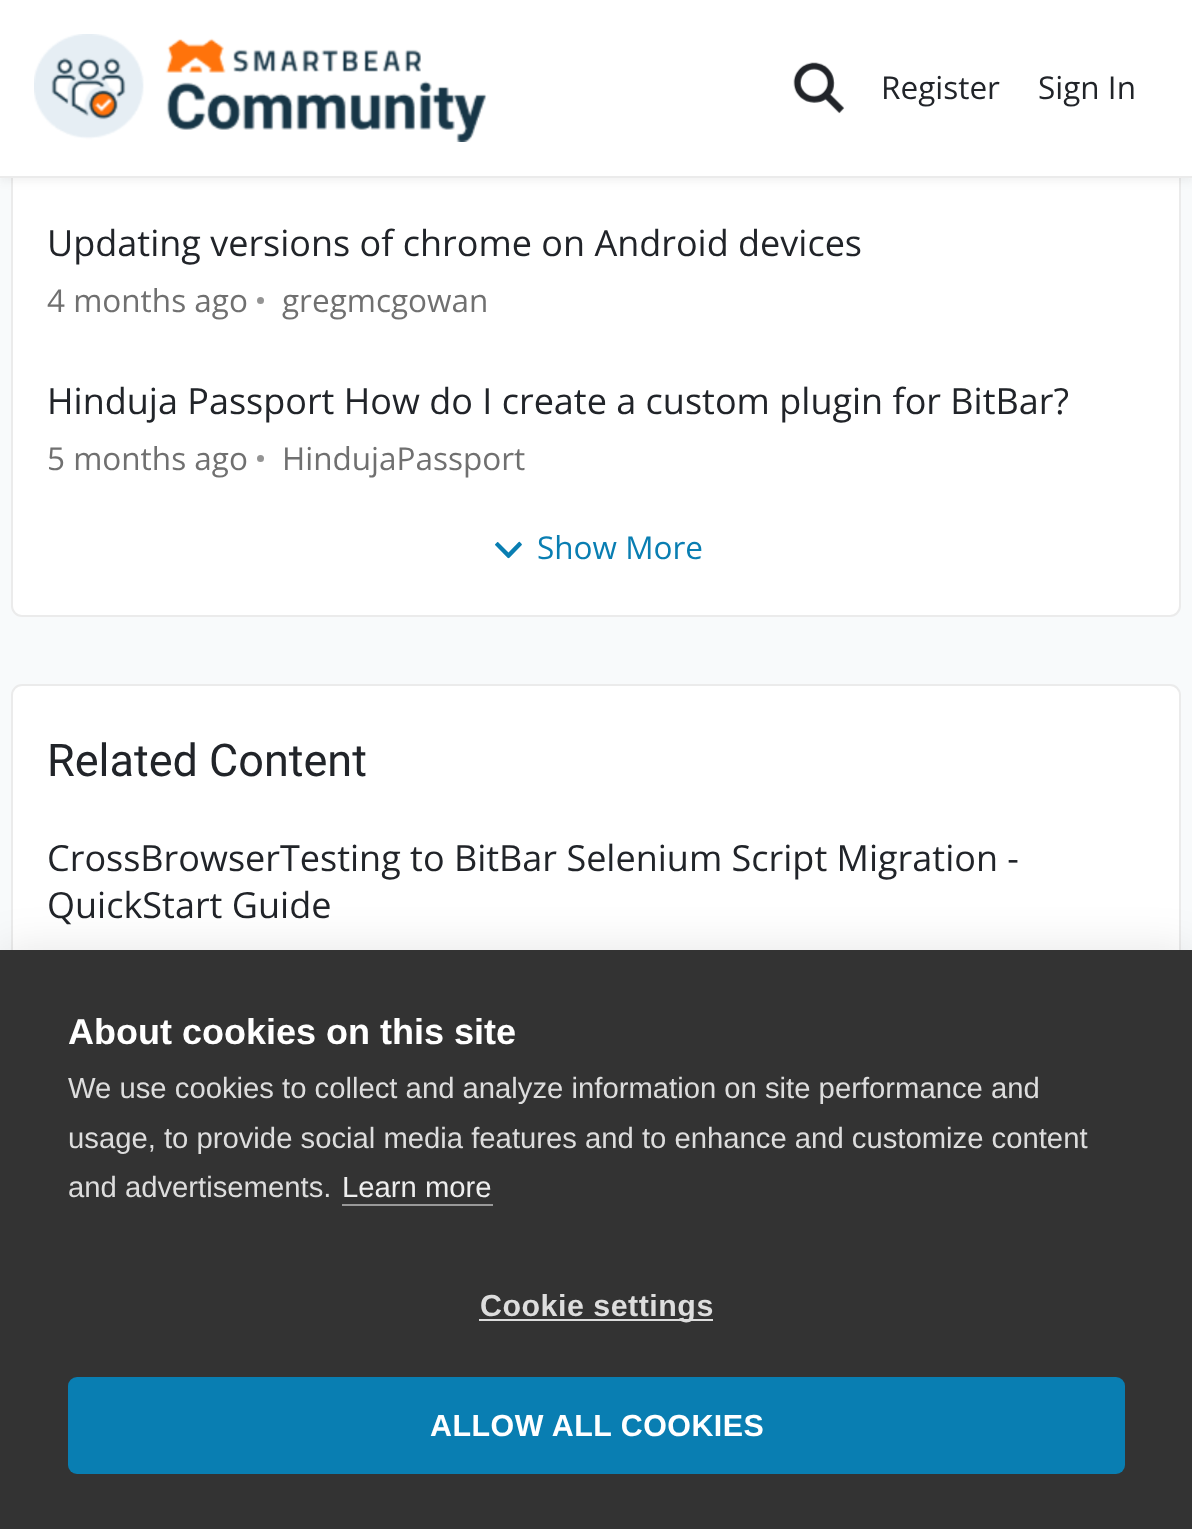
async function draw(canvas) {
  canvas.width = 1192
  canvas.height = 1529
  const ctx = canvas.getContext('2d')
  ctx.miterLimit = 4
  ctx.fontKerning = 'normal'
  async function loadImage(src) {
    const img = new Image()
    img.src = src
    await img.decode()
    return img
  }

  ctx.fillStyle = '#f8fafb'
  ctx.fillRect(0, 0, 1192, 1529)
  ctx.fillStyle = '#fff'
  ctx.beginPath()
  ctx.roundRect(12, -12, 1168, 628, 10)
  ctx.fill()
  ctx.strokeStyle = '#ebebeb'
  ctx.lineWidth = 2
  ctx.stroke()
  ctx.fillStyle = '#3333330f'
  ctx.filter = 'blur(4.5px)'
  ctx.beginPath()
  ctx.rect(0, 5, 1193, 177)
  ctx.fill()
  ctx.filter = 'none'
  ctx.fillStyle = '#fff'
  ctx.fillRect(0, 0, 1192, 176)
  ctx.fillStyle = '#ebebeb'
  ctx.fillRect(0, 176, 1192, 2)
  ctx.drawImage(await loadImage('image0.png'), 34, 34, 453, 108)
  ctx.drawImage(await loadImage('image1.png'), 793, 62, 52, 52)
  ctx.font = '31.5px Open Sans'
  ctx.fillStyle = '#212429'
  ctx.fillText('Register', 881, 99)
  ctx.fillText('Sign In', 1038, 99)
  ctx.font = '36px Open Sans'
  ctx.fillText('Updating versions of chrome on Android devices', 47, 256)
  ctx.font = '31.5px Open Sans'
  ctx.fillStyle = '#707070'
  ctx.fillText('4 months ago', 47, 312)
  ctx.fillStyle = '#949494'
  ctx.beginPath()
  ctx.arc(260.5, 300.5, 3.5, 0, 2 * Math.PI)
  ctx.fill()
  ctx.fillStyle = '#707070'
  ctx.fillText('gregmcgowan', 282, 312)
  ctx.font = '36px Open Sans'
  ctx.fillStyle = '#212429'
  ctx.fillText('Hinduja Passport How do I create a custom plugin for BitBar?', 47, 414)
  ctx.font = '31.5px Open Sans'
  ctx.fillStyle = '#707070'
  ctx.fillText('5 months ago', 47, 470)
  ctx.fillStyle = '#949494'
  ctx.beginPath()
  ctx.arc(260.5, 458.5, 3.5, 0, 2 * Math.PI)
  ctx.fill()
  ctx.fillStyle = '#707070'
  ctx.fillText('HindujaPassport', 282, 470)
  ctx.drawImage(await loadImage('image2.png'), 495, 541, 27, 18)
  ctx.fillStyle = '#097eb2'
  ctx.fillText('Show More', 537, 559)
  ctx.fillStyle = '#fff'
  ctx.beginPath()
  ctx.roundRect(12, 685, 1168, 788, 10)
  ctx.fill()
  ctx.stroke()
  ctx.font = '45px Roboto'
  ctx.fillStyle = '#212429'
  ctx.fillText('Related Content', 47, 776)
  ctx.font = '36px Open Sans'
  ctx.fillText('CrossBrowserTesting to BitBar Selenium Script Migration -', 47, 871)
  ctx.fillText('QuickStart Guide', 47, 918)
  ctx.fillStyle = '#0000001a'
  ctx.filter = 'blur(22.5px)'
  ctx.beginPath()
  ctx.rect(0, 950, 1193, 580)
  ctx.fill()
  ctx.filter = 'none'
  ctx.fillStyle = '#333'
  ctx.fillRect(0, 950, 1192, 579)
  ctx.font = 'bold 36px Liberation Sans'
  ctx.fillStyle = '#fff'
  ctx.fillText('About cookies on this site', 68, 1044)
  ctx.font = '29.25px Liberation Sans'
  ctx.fillStyle = '#ddd'
  ctx.fillText('We use cookies to collect and analyze information on site performance and', 68, 1098)
  ctx.fillText('usage, to provide social media features and to enhance and customize content', 68, 1148)
  ctx.fillText('and advertisements.', 68, 1197)
  ctx.fillStyle = '#eee'
  ctx.fillText('Learn more', 342, 1197)
  ctx.fillStyle = '#999'
  ctx.fillRect(342, 1204, 151, 2)
  ctx.fillStyle = '#ddd'
  ctx.fillRect(479, 1319, 234, 2)
  ctx.letterSpacing = '0.5px'
  ctx.font = 'bold 30.4px Liberation Sans'
  ctx.fillText('Cookie settings', 480, 1316)
  ctx.fillStyle = '#097eb2'
  ctx.beginPath()
  ctx.roundRect(68, 1377, 1057, 97, 9)
  ctx.fill()
  ctx.fillStyle = '#fff'
  ctx.fillText('ALLOW ALL COOKIES', 430, 1436)
}

draw(document.querySelector('canvas'))
